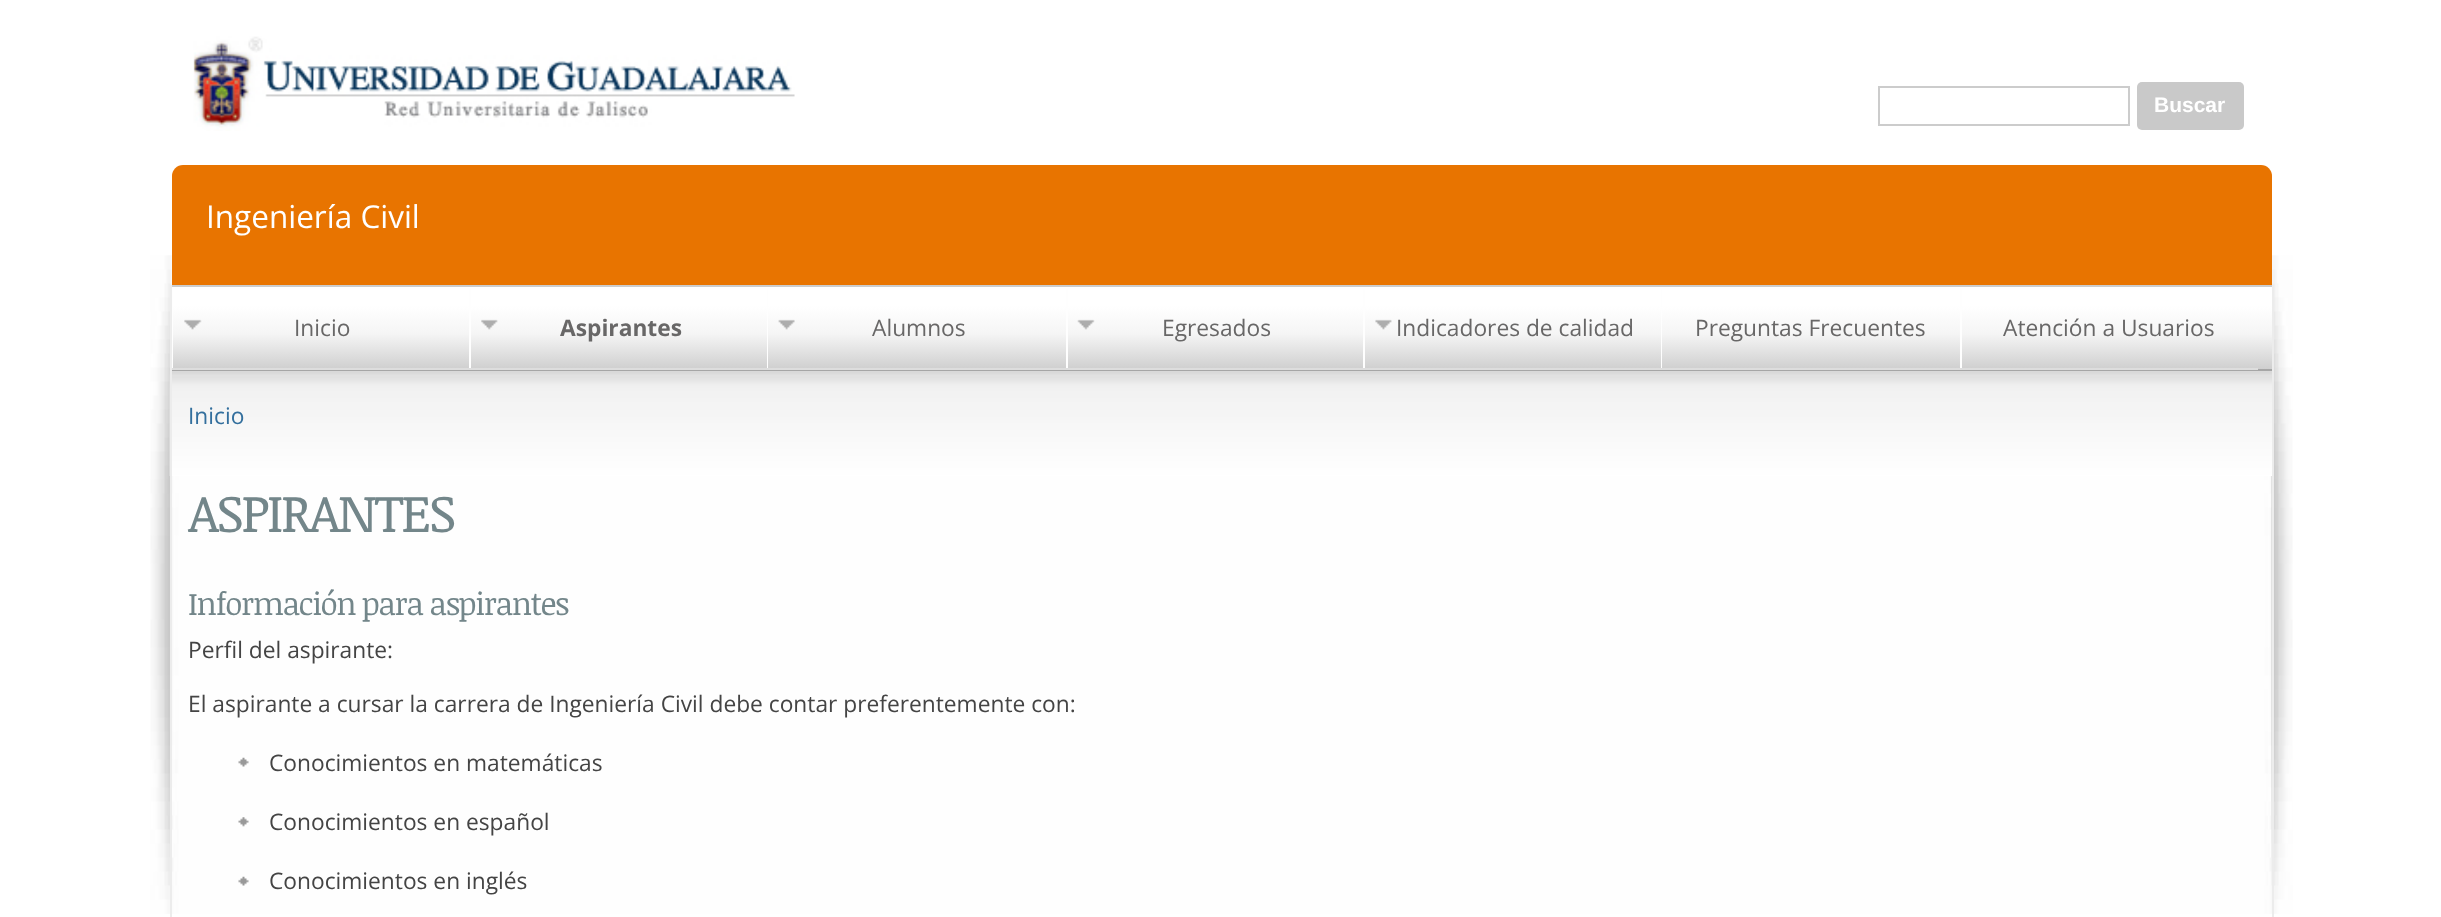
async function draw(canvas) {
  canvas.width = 2441
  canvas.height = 917
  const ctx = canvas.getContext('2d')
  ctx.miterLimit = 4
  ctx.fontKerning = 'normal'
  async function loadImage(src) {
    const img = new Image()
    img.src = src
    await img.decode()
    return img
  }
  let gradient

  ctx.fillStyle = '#fff'
  ctx.fillRect(0, 0, 2441, 917)
  ctx.drawImage(await loadImage('image0.png'), 150, 255, 2143, 659)
  ctx.drawImage(await loadImage('image1.png'), 193, 36, 602, 95)
  ctx.strokeStyle = '#ccc'
  ctx.lineWidth = 2
  ctx.strokeRect(1879, 87, 250, 38)
  ctx.fillStyle = '#c9c9c9'
  ctx.beginPath()
  ctx.roundRect(2137, 82, 107, 48, 5)
  ctx.fill()
  ctx.font = 'bold 21px Liberation Sans'
  ctx.fillStyle = '#fff'
  ctx.fillText('Buscar', 2154, 112)
  ctx.fillStyle = '#e87400'
  ctx.beginPath()
  ctx.roundRect(172, 165, 2100, 120, [11, 11, 0, 0])
  ctx.fill()
  ctx.font = '31.5px Open Sans'
  ctx.fillStyle = '#fff'
  ctx.fillText('Ingeniería Civil', 206, 228)
  ctx.fillStyle = '#ececec'
  ctx.fillRect(2272, 285, 2, 632)
  ctx.fillRect(170, 285, 2, 86)
  gradient = ctx.createLinearGradient(1222, 287, 1222, 369)
  gradient.addColorStop(0.23, '#fff')
  gradient.addColorStop(0.57, '#f5f5f5')
  gradient.addColorStop(1, '#cfcfcf')
  ctx.fillStyle = gradient
  ctx.fillRect(173, 287, 2099, 82)
  ctx.fillStyle = '#ccc'
  ctx.fillRect(172, 285, 2100, 2)
  ctx.fillStyle = '#a6a6a6'
  ctx.fillRect(172, 369, 2100, 2)
  ctx.drawImage(await loadImage('image2.png'), 184, 319, 18, 11)
  ctx.save()
  ctx.beginPath()
  ctx.rect(172, 287, 297, 81)
  ctx.clip()
  ctx.fillStyle = '#fefefe'
  ctx.beginPath()
  ctx.moveTo(-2, 114)
  ctx.lineTo(642, 114)
  ctx.lineTo(642, 541)
  ctx.lineTo(-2, 541)
  ctx.closePath()
  ctx.moveTo(173, 289)
  ctx.lineTo(471, 289)
  ctx.lineTo(471, 369)
  ctx.lineTo(173, 369)
  ctx.closePath()
  ctx.fill('evenodd')
  ctx.restore()
  ctx.fillStyle = '#ddd'
  ctx.fillRect(172, 368, 2086, 2)
  ctx.font = '22.75px Open Sans'
  ctx.fillStyle = '#686767'
  ctx.fillText('Inicio', 294, 336)
  ctx.drawImage(await loadImage('image3.png'), 481, 319, 17, 11)
  ctx.save()
  ctx.beginPath()
  ctx.rect(469, 287, 298, 81)
  ctx.clip()
  ctx.fillStyle = '#fefefe'
  ctx.beginPath()
  ctx.moveTo(296, 114)
  ctx.lineTo(940, 114)
  ctx.lineTo(940, 541)
  ctx.lineTo(296, 541)
  ctx.closePath()
  ctx.moveTo(471, 289)
  ctx.lineTo(768, 289)
  ctx.lineTo(768, 369)
  ctx.lineTo(471, 369)
  ctx.closePath()
  ctx.fill('evenodd')
  ctx.restore()
  ctx.font = 'bold 22.75px Open Sans'
  ctx.fillText('Aspirantes', 560, 336)
  ctx.drawImage(await loadImage('image4.png'), 778, 319, 17, 11)
  ctx.save()
  ctx.beginPath()
  ctx.rect(767, 287, 299, 81)
  ctx.clip()
  ctx.fillStyle = '#fefefe'
  ctx.beginPath()
  ctx.moveTo(593, 114)
  ctx.lineTo(1239, 114)
  ctx.lineTo(1239, 541)
  ctx.lineTo(593, 541)
  ctx.closePath()
  ctx.moveTo(768, 289)
  ctx.lineTo(1068, 289)
  ctx.lineTo(1068, 369)
  ctx.lineTo(768, 369)
  ctx.closePath()
  ctx.fill('evenodd')
  ctx.restore()
  ctx.font = '22.75px Open Sans'
  ctx.fillText('Alumnos', 872, 336)
  ctx.drawImage(await loadImage('image5.png'), 1077, 319, 18, 11)
  ctx.save()
  ctx.beginPath()
  ctx.rect(1066, 287, 297, 81)
  ctx.clip()
  ctx.fillStyle = '#fefefe'
  ctx.beginPath()
  ctx.moveTo(892, 114)
  ctx.lineTo(1536, 114)
  ctx.lineTo(1536, 541)
  ctx.lineTo(892, 541)
  ctx.closePath()
  ctx.moveTo(1068, 289)
  ctx.lineTo(1365, 289)
  ctx.lineTo(1365, 369)
  ctx.lineTo(1068, 369)
  ctx.closePath()
  ctx.fill('evenodd')
  ctx.restore()
  ctx.fillText('Egresados', 1162, 336)
  ctx.drawImage(await loadImage('image6.png'), 1375, 319, 17, 11)
  ctx.save()
  ctx.beginPath()
  ctx.rect(1363, 287, 298, 81)
  ctx.clip()
  ctx.fillStyle = '#fefefe'
  ctx.beginPath()
  ctx.moveTo(1190, 114)
  ctx.lineTo(1834, 114)
  ctx.lineTo(1834, 541)
  ctx.lineTo(1190, 541)
  ctx.closePath()
  ctx.moveTo(1365, 289)
  ctx.lineTo(1662, 289)
  ctx.lineTo(1662, 369)
  ctx.lineTo(1365, 369)
  ctx.closePath()
  ctx.fill('evenodd')
  ctx.restore()
  ctx.fillText('Indicadores de calidad', 1396, 336)
  ctx.save()
  ctx.beginPath()
  ctx.rect(1661, 287, 299, 81)
  ctx.clip()
  ctx.fillStyle = '#fefefe'
  ctx.beginPath()
  ctx.moveTo(1488, 114)
  ctx.lineTo(2133, 114)
  ctx.lineTo(2133, 541)
  ctx.lineTo(1488, 541)
  ctx.closePath()
  ctx.moveTo(1662, 289)
  ctx.lineTo(1962, 289)
  ctx.lineTo(1962, 369)
  ctx.lineTo(1662, 369)
  ctx.closePath()
  ctx.fill('evenodd')
  ctx.restore()
  ctx.fillText('Preguntas Frecuentes', 1695, 336)
  ctx.save()
  ctx.beginPath()
  ctx.rect(1960, 287, 298, 81)
  ctx.clip()
  ctx.fillStyle = '#fefefe'
  ctx.beginPath()
  ctx.moveTo(1787, 114)
  ctx.lineTo(2431, 114)
  ctx.lineTo(2431, 541)
  ctx.lineTo(1787, 541)
  ctx.closePath()
  ctx.moveTo(1962, 289)
  ctx.lineTo(2259, 289)
  ctx.lineTo(2259, 369)
  ctx.lineTo(1962, 369)
  ctx.closePath()
  ctx.fill('evenodd')
  ctx.restore()
  ctx.fillText('Atención a Usuarios', 2003, 336)
  ctx.drawImage(await loadImage('image7.png'), 169, 371, 2103, 105)
  ctx.fillStyle = '#ececec'
  ctx.fillRect(170, 371, 2, 546)
  ctx.fillStyle = '#336f9d'
  ctx.fillText('Inicio', 188, 424)
  ctx.letterSpacing = '-2.6px'
  ctx.font = '52.5px Noticia Text'
  ctx.fillStyle = '#73868a'
  ctx.fillText('ASPIRANTES', 188, 532)
  ctx.letterSpacing = '-1.6px'
  ctx.font = '31.5px Noticia Text'
  ctx.fillText('Información para aspirantes', 188, 615)
  ctx.letterSpacing = '0px'
  ctx.font = '22.75px Open Sans'
  ctx.fillStyle = '#444'
  ctx.fillText('Perfil del aspirante:', 188, 658)
  ctx.fillText('El aspirante a cursar la carrera de Ingeniería Civil debe contar preferentemente con:', 188, 712)
  ctx.drawImage(await loadImage('image8.png'), 238, 757, 11, 10)
  ctx.fillText('Conocimientos en matemáticas', 269, 771)
  ctx.drawImage(await loadImage('image9.png'), 238, 817, 11, 10)
  ctx.fillText('Conocimientos en español', 269, 830)
  ctx.drawImage(await loadImage('image8.png'), 238, 876, 11, 10)
  ctx.fillText('Conocimientos en inglés', 269, 889)
}

draw(document.querySelector('canvas'))
